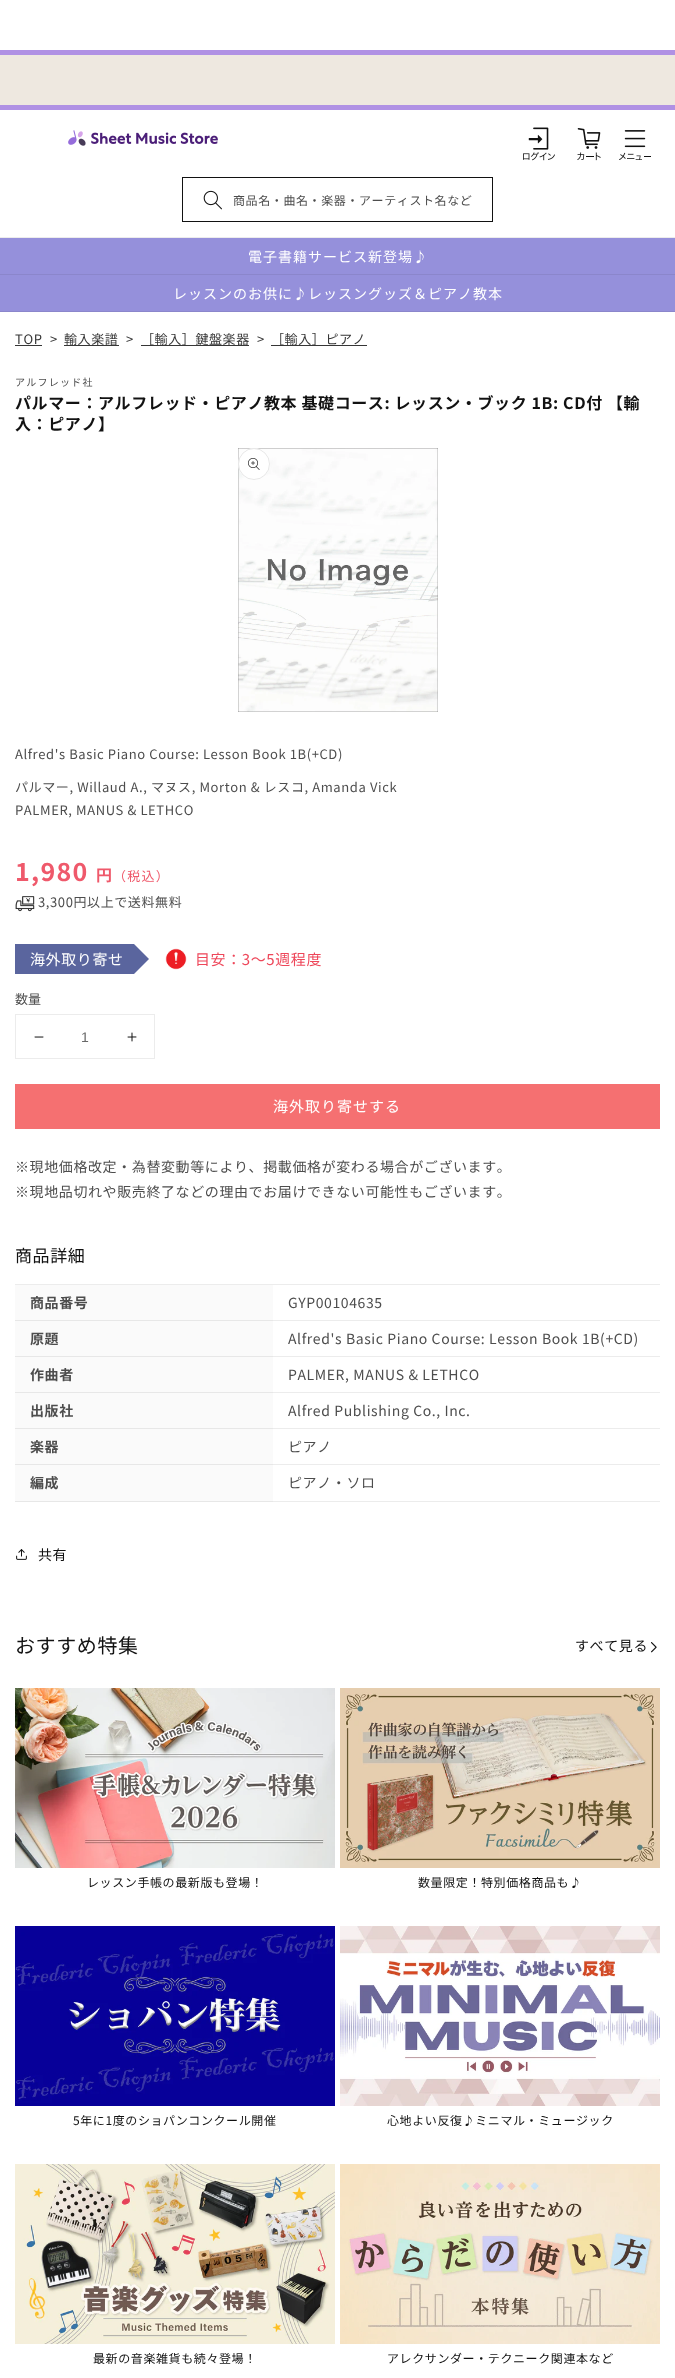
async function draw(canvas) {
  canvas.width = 675
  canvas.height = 2378
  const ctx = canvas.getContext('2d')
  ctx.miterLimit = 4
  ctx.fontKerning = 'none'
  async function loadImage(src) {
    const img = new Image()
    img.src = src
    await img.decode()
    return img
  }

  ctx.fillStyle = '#fff'
  ctx.fillRect(0, 0, 675, 2378)
  ctx.fillStyle = '#b091e4'
  ctx.fillRect(0, 50, 675, 5)
  ctx.fillStyle = '#eee8e0'
  ctx.fillRect(0, 55, 675, 50)
  ctx.fillStyle = '#b091e4'
  ctx.fillRect(0, 105, 675, 5)
  ctx.fillStyle = '#ececec'
  ctx.fillRect(0, 237, 675, 1)
  ctx.drawImage(await loadImage('image0.png'), 68, 130, 150, 16)
  ctx.drawImage(await loadImage('image1.png'), 523, 127, 32, 34)
  ctx.drawImage(await loadImage('image2.png'), 577, 128, 24, 33)
  ctx.drawImage(await loadImage('image3.png'), 619, 130, 32, 30)
  ctx.strokeStyle = '#121212'
  ctx.strokeRect(182.5, 177.5, 310, 44)
  ctx.drawImage(await loadImage('image4.png'), 203, 190, 19, 20)
  ctx.letterSpacing = '0.6px'
  ctx.font = '12px Noto Sans JP'
  ctx.fillStyle = '#4d4d4d'
  ctx.fillText('商品名・曲名・楽器・アーティスト名など', 233, 205)
  ctx.fillStyle = '#9590db'
  ctx.fillRect(0, 238, 675, 36)
  ctx.fillStyle = '#8b86cb'
  ctx.fillRect(0, 274, 675, 1)
  ctx.letterSpacing = '1px'
  ctx.font = '14px Noto Sans JP'
  ctx.fillStyle = '#fff'
  ctx.fillText('電子書籍サービス新登場♪', 248, 262)
  ctx.fillStyle = '#9590db'
  ctx.fillRect(0, 275, 675, 36)
  ctx.fillStyle = '#8b86cb'
  ctx.fillRect(0, 311, 675, 1)
  ctx.fillStyle = '#fff'
  ctx.fillText('レッスンのお供に♪レッスングッズ＆ピアノ教本', 173, 299)
  ctx.letterSpacing = '0.6px'
  ctx.font = '13px Noto Sans JP'
  ctx.fillStyle = '#363636'
  ctx.fillText('TOP', 15, 344)
  ctx.fillRect(15, 345, 27, 1)
  ctx.fillText('>', 50, 344)
  ctx.fillRect(64, 345, 55, 1)
  ctx.fillText('輸入楽譜', 64, 344)
  ctx.fillText('>', 126, 344)
  ctx.fillRect(141, 345, 108, 1)
  ctx.fillText('［輸入］鍵盤楽器', 141, 344)
  ctx.fillText('>', 257, 344)
  ctx.fillRect(271, 345, 96, 1)
  ctx.fillText('［輸入］ピアノ', 271, 344)
  ctx.letterSpacing = '1.25px'
  ctx.font = '10px Noto Sans JP'
  ctx.fillStyle = '#4d4d4d'
  ctx.fillText('アルフレッド社', 15, 386)
  ctx.letterSpacing = '0.6px'
  ctx.font = 'bold 16px Noto Sans JP'
  ctx.fillStyle = '#121212'
  ctx.fillText('パルマー：アルフレッド・ピアノ教本 基礎コース: レッスン・ブック 1B: CD付 【輸', 15, 409)
  ctx.fillText('入：ピアノ】', 15, 430)
  ctx.drawImage(await loadImage('image5.png'), 238, 448, 200, 264)
  ctx.fillStyle = '#fff'
  ctx.beginPath()
  ctx.arc(254, 464, 16, 0, 2 * Math.PI)
  ctx.fill()
  ctx.beginPath()
  ctx.arc(254, 464, 15.5, 0, 2 * Math.PI)
  ctx.strokeStyle = '#1212121a'
  ctx.stroke()
  ctx.drawImage(await loadImage('image6.png'), 248, 458, 12, 12)
  ctx.font = '13px Noto Sans JP'
  ctx.fillStyle = '#4d4d4d'
  ctx.fillText('Alfred\'s Basic Piano Course: Lesson Book 1B(+CD)', 15, 759)
  ctx.fillText('パルマー, Willaud A., マヌス, Morton & レスコ, Amanda Vick', 15, 792)
  ctx.fillText('PALMER, MANUS & LETHCO', 15, 815)
  ctx.letterSpacing = '1.25px'
  ctx.font = 'bold 25px Noto Sans JP'
  ctx.fillStyle = '#ef596b'
  ctx.fillText('1,980', 15, 881)
  ctx.font = 'bold 16px Noto Sans JP'
  ctx.fillText('円', 96, 881)
  ctx.font = '13px Noto Sans JP'
  ctx.fillText('（税込）', 113, 881)
  ctx.drawImage(await loadImage('image7.png'), 15, 896, 20, 16)
  ctx.letterSpacing = '0.6px'
  ctx.fillStyle = '#4d4d4d'
  ctx.fillText('3,300円以上で送料無料', 38, 907)
  ctx.fillStyle = '#5a659e'
  ctx.fillRect(15, 944, 119, 30)
  ctx.font = '15px Noto Sans JP'
  ctx.fillStyle = '#fff'
  ctx.fillText('海外取り寄せ', 30, 965)
  ctx.fillStyle = '#5a659e'
  ctx.beginPath()
  ctx.moveTo(134, 974)
  ctx.lineTo(134, 944)
  ctx.lineTo(149, 959)
  ctx.closePath()
  ctx.fill()
  ctx.drawImage(await loadImage('image8.png'), 165, 948, 22, 22)
  ctx.fillStyle = '#ee475a'
  ctx.fillText('目安：3～5週程度', 195, 965)
  ctx.letterSpacing = '0px'
  ctx.font = '13px Noto Sans JP'
  ctx.fillStyle = '#4d4d4d'
  ctx.fillText('数量', 15, 1004)
  ctx.strokeStyle = '#ececec'
  ctx.strokeRect(15.5, 1014.5, 139, 44)
  ctx.drawImage(await loadImage('image9.png'), 34, 1036, 10, 2)
  ctx.font = '14px Liberation Sans'
  ctx.fillStyle = '#686868'
  ctx.fillText('1', 81, 1042)
  ctx.drawImage(await loadImage('image10.png'), 127, 1032, 10, 10)
  ctx.fillStyle = '#f57071'
  ctx.fillRect(15, 1084, 645, 45)
  ctx.letterSpacing = '1px'
  ctx.font = '15px Noto Sans JP'
  ctx.fillStyle = '#fff'
  ctx.fillText('海外取り寄せする', 273, 1112)
  ctx.letterSpacing = '0.6px'
  ctx.font = '14px Noto Sans JP'
  ctx.fillStyle = '#4d4d4d'
  ctx.fillText('※現地価格改定・為替変動等により、掲載価格が変わる場合がございます。', 15, 1172)
  ctx.fillText('※現地品切れや販売終了などの理由でお届けできない可能性もございます。', 15, 1197)
  ctx.font = '17px Noto Sans JP'
  ctx.fillStyle = '#121212'
  ctx.fillText('商品詳細', 15, 1262)
  ctx.fillStyle = '#ececec'
  ctx.fillRect(15, 1284, 645, 1)
  ctx.fillStyle = '#fafafa'
  ctx.fillRect(15, 1285, 258, 35)
  ctx.fillStyle = '#e7e7e7'
  ctx.fillRect(15, 1320, 258, 1)
  ctx.font = 'bold 14px Noto Sans JP'
  ctx.fillStyle = '#4d4d4d'
  ctx.fillText('商品番号', 30, 1308)
  ctx.fillStyle = '#ececec'
  ctx.fillRect(273, 1320, 387, 1)
  ctx.font = '14px Noto Sans JP'
  ctx.fillStyle = '#4d4d4d'
  ctx.fillText('GYP00104635', 288, 1308)
  ctx.fillStyle = '#fafafa'
  ctx.fillRect(15, 1321, 258, 35)
  ctx.fillStyle = '#e7e7e7'
  ctx.fillRect(15, 1356, 258, 1)
  ctx.font = 'bold 14px Noto Sans JP'
  ctx.fillStyle = '#4d4d4d'
  ctx.fillText('原題', 30, 1344)
  ctx.fillStyle = '#ececec'
  ctx.fillRect(273, 1356, 387, 1)
  ctx.font = '14px Noto Sans JP'
  ctx.fillStyle = '#4d4d4d'
  ctx.fillText('Alfred\'s Basic Piano Course: Lesson Book 1B(+CD)', 288, 1344)
  ctx.fillStyle = '#fafafa'
  ctx.fillRect(15, 1357, 258, 35)
  ctx.fillStyle = '#e7e7e7'
  ctx.fillRect(15, 1392, 258, 1)
  ctx.font = 'bold 14px Noto Sans JP'
  ctx.fillStyle = '#4d4d4d'
  ctx.fillText('作曲者', 30, 1380)
  ctx.fillStyle = '#ececec'
  ctx.fillRect(273, 1392, 387, 1)
  ctx.font = '14px Noto Sans JP'
  ctx.fillStyle = '#4d4d4d'
  ctx.fillText('PALMER, MANUS & LETHCO', 288, 1380)
  ctx.fillStyle = '#fafafa'
  ctx.fillRect(15, 1393, 258, 35)
  ctx.fillStyle = '#e7e7e7'
  ctx.fillRect(15, 1428, 258, 1)
  ctx.font = 'bold 14px Noto Sans JP'
  ctx.fillStyle = '#4d4d4d'
  ctx.fillText('出版社', 30, 1416)
  ctx.fillStyle = '#ececec'
  ctx.fillRect(273, 1428, 387, 1)
  ctx.font = '14px Noto Sans JP'
  ctx.fillStyle = '#4d4d4d'
  ctx.fillText('Alfred Publishing Co., Inc.', 288, 1416)
  ctx.fillStyle = '#fafafa'
  ctx.fillRect(15, 1429, 258, 35)
  ctx.fillStyle = '#e7e7e7'
  ctx.fillRect(15, 1464, 258, 1)
  ctx.font = 'bold 14px Noto Sans JP'
  ctx.fillStyle = '#4d4d4d'
  ctx.fillText('楽器', 30, 1452)
  ctx.fillStyle = '#ececec'
  ctx.fillRect(273, 1464, 387, 1)
  ctx.font = '14px Noto Sans JP'
  ctx.fillStyle = '#4d4d4d'
  ctx.fillText('ピアノ', 288, 1452)
  ctx.fillStyle = '#fafafa'
  ctx.fillRect(15, 1465, 258, 36)
  ctx.fillStyle = '#e7e7e7'
  ctx.fillRect(15, 1501, 258, 1)
  ctx.font = 'bold 14px Noto Sans JP'
  ctx.fillStyle = '#4d4d4d'
  ctx.fillText('編成', 30, 1488)
  ctx.fillStyle = '#ececec'
  ctx.fillRect(273, 1501, 387, 1)
  ctx.font = '14px Noto Sans JP'
  ctx.fillStyle = '#4d4d4d'
  ctx.fillText('ピアノ・ソロ', 288, 1488)
  ctx.drawImage(await loadImage('image11.png'), 16, 1549, 11, 11)
  ctx.fillStyle = '#121212'
  ctx.fillText('共有', 38, 1560)
  ctx.font = '20px Noto Sans JP'
  ctx.fillText('おすすめ特集', 15, 1653)
  ctx.font = '14px Noto Sans JP'
  ctx.fillText('すべて見る', 575, 1651)
  ctx.drawImage(await loadImage('image12.png'), 651, 1642, 6, 11)
  ctx.drawImage(await loadImage('image13.png'), 15, 1688, 320, 180)
  ctx.font = '12px Noto Sans JP'
  ctx.fillText('レッスン手帳の最新版も登場！', 87, 1887)
  ctx.drawImage(await loadImage('image14.png'), 340, 1688, 320, 180)
  ctx.fillText('数量限定！特別価格商品も♪', 418, 1887)
  ctx.drawImage(await loadImage('image15.png'), 15, 1926, 320, 180)
  ctx.fillText('5年に1度のショパンコンクール開催', 73, 2125)
  ctx.drawImage(await loadImage('image16.png'), 340, 1926, 320, 180)
  ctx.fillText('心地よい反復♪ミニマル・ミュージック', 387, 2125)
  ctx.drawImage(await loadImage('image17.png'), 15, 2164, 320, 180)
  ctx.fillText('最新の音楽雑貨も続々登場！', 93, 2363)
  ctx.drawImage(await loadImage('image18.png'), 340, 2164, 320, 180)
  ctx.fillText('アレクサンダー・テクニーク関連本など', 387, 2363)
}

draw(document.querySelector('canvas'))
